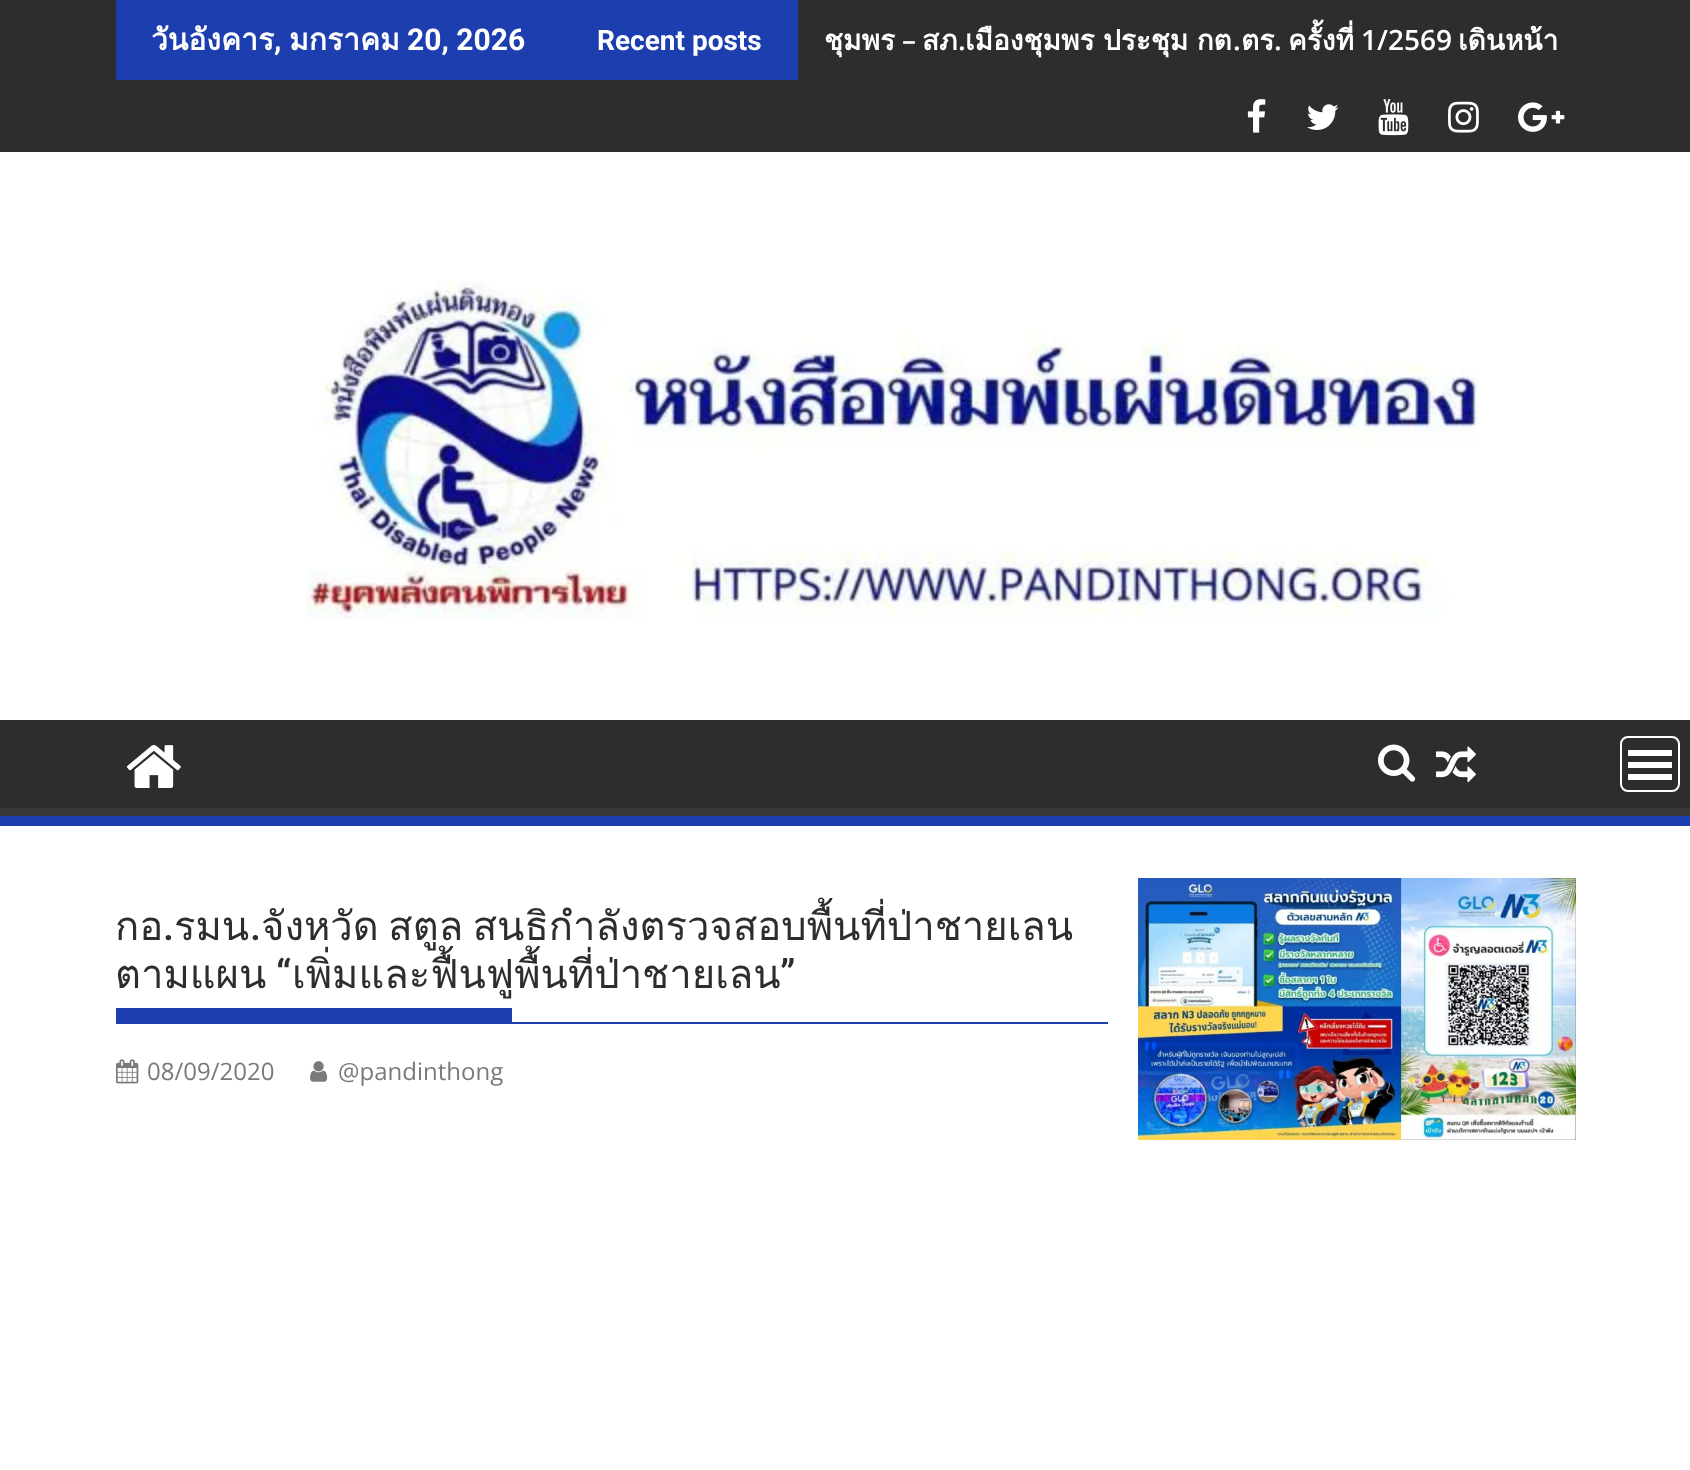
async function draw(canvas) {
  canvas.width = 1690
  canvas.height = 1470
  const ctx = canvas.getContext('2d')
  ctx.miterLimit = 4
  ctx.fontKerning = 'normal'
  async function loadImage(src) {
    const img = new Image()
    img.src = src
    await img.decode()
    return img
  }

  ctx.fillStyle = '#fff'
  ctx.fillRect(0, 0, 1690, 1470)
  ctx.fillStyle = '#2d2d2d'
  ctx.fillRect(0, 0, 1690, 152)
  ctx.fillStyle = '#1c3eaf'
  ctx.fillRect(116, 0, 682, 80)
  ctx.font = 'bold 30px Loma'
  ctx.fillStyle = '#fff'
  ctx.fillText('วันอังคาร', 151, 50)
  ctx.font = 'bold 30px Roboto'
  ctx.fillText(',', 274, 50)
  ctx.font = 'bold 30px Loma'
  ctx.fillText('มกราคม', 289, 50)
  ctx.font = 'bold 30px Roboto'
  ctx.fillText('20, 2026', 407, 50)
  ctx.font = 'bold 28px Roboto'
  ctx.fillText('Recent posts', 597, 50)
  ctx.font = 'bold 28px Loma'
  ctx.fillText('ชุมพร', 824, 50)
  ctx.font = '600 28px Open Sans'
  ctx.fillText('–', 902, 50)
  ctx.font = 'bold 28px Loma'
  ctx.fillText('สภ', 922, 50)
  ctx.font = '600 28px Open Sans'
  ctx.fillText('.', 958, 50)
  ctx.wordSpacing = '-1px'
  ctx.font = 'bold 28px Loma'
  ctx.fillText('เมืองชุมพร ประชุม กต', 965, 50)
  ctx.wordSpacing = '0px'
  ctx.fillText('ตร', 1241, 50)
  ctx.fillText('ครั้งที่', 1288, 50)
  ctx.font = '600 28px Open Sans'
  ctx.fillText('1/2569', 1361, 50)
  ctx.font = 'bold 28px Loma'
  ctx.fillText('เดินหน้า', 1458, 50)
  ctx.font = '600 28px Open Sans'
  ctx.fillText('.', 1233, 50)
  ctx.fillText('.', 1274, 50)
  ctx.drawImage(await loadImage('image0.png'), 1247, 99, 19, 34)
  ctx.drawImage(await loadImage('image1.png'), 1307, 104, 32, 26)
  ctx.drawImage(await loadImage('image2.png'), 1378, 99, 31, 37)
  ctx.drawImage(await loadImage('image3.png'), 1448, 101, 31, 32)
  ctx.drawImage(await loadImage('image4.png'), 1518, 102, 47, 30)
  ctx.drawImage(await loadImage('image5.png'), 306, 280, 1171, 340)
  ctx.fillStyle = '#2d2d2d'
  ctx.fillRect(0, 720, 1690, 88)
  ctx.save()
  ctx.beginPath()
  ctx.rect(0, 720, 1690, 96)
  ctx.clip()
  ctx.fillStyle = '#393939'
  ctx.beginPath()
  ctx.moveTo(-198, 522)
  ctx.lineTo(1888, 522)
  ctx.lineTo(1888, 1014)
  ctx.lineTo(-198, 1014)
  ctx.closePath()
  ctx.moveTo(-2, 708)
  ctx.lineTo(1688, 708)
  ctx.bezierCurveTo(1689, 708, 1690, 709, 1690, 710)
  ctx.lineTo(1690, 806)
  ctx.bezierCurveTo(1690, 807, 1689, 808, 1688, 808)
  ctx.lineTo(-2, 808)
  ctx.bezierCurveTo(-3, 808, -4, 807, -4, 806)
  ctx.lineTo(-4, 710)
  ctx.bezierCurveTo(-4, 709, -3, 708, -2, 708)
  ctx.closePath()
  ctx.fill('evenodd')
  ctx.restore()
  ctx.fillStyle = '#1c3eaf'
  ctx.fillRect(0, 816, 1690, 10)
  ctx.drawImage(await loadImage('image6.png'), 126, 745, 55, 43)
  ctx.drawImage(await loadImage('image7.png'), 1378, 744, 38, 38)
  ctx.drawImage(await loadImage('image8.png'), 1436, 746, 40, 37)
  ctx.beginPath()
  ctx.roundRect(1621, 737, 58, 54, 7)
  ctx.strokeStyle = '#fff'
  ctx.lineWidth = 2
  ctx.stroke()
  ctx.fillStyle = '#fff'
  ctx.fillRect(1628, 774, 44, 6)
  ctx.fillRect(1628, 762, 44, 6)
  ctx.fillRect(1628, 750, 44, 6)
  ctx.fillStyle = '#1c3eaf'
  ctx.fillRect(116, 1022, 992, 2)
  ctx.font = '40px Loma'
  ctx.fillStyle = '#2d2d2d'
  ctx.fillText('กอ', 115, 940)
  ctx.font = '500 40px Roboto'
  ctx.fillText('.', 163, 940)
  ctx.font = '40px Loma'
  ctx.fillText('รมน', 174, 940)
  ctx.font = '500 40px Roboto'
  ctx.fillText('.', 250, 940)
  ctx.wordSpacing = '-4px'
  ctx.font = '40px Loma'
  ctx.fillText('จังหวัด สตูล สนธิกำลังตรวจสอบพื้นที่ป่าชายเลน', 261, 940)
  ctx.wordSpacing = '0px'
  ctx.font = '500 40px Roboto'
  ctx.fillText('“', 276, 988)
  ctx.font = '40px Loma'
  ctx.fillText('เพิ่มและฟื้นฟูพื้นที่ป่าชายเลน', 292, 988)
  ctx.font = '500 40px Roboto'
  ctx.fillText('”', 780, 988)
  ctx.font = '40px Loma'
  ctx.fillText('ตามแผน', 115, 988)
  ctx.fillStyle = '#1c3eaf'
  ctx.fillRect(116, 1008, 396, 14)
  ctx.drawImage(await loadImage('image9.png'), 116, 1059, 23, 25)
  ctx.font = '24px Open Sans'
  ctx.fillStyle = '#7a7a7a'
  ctx.fillText('08/09/2020', 147, 1080)
  ctx.drawImage(await loadImage('image10.png'), 310, 1061, 18, 21)
  ctx.fillText('@pandinthong', 338, 1080)
  ctx.drawImage(await loadImage('image11.png'), 1138, 878, 438, 262)
}

draw(document.querySelector('canvas'))
